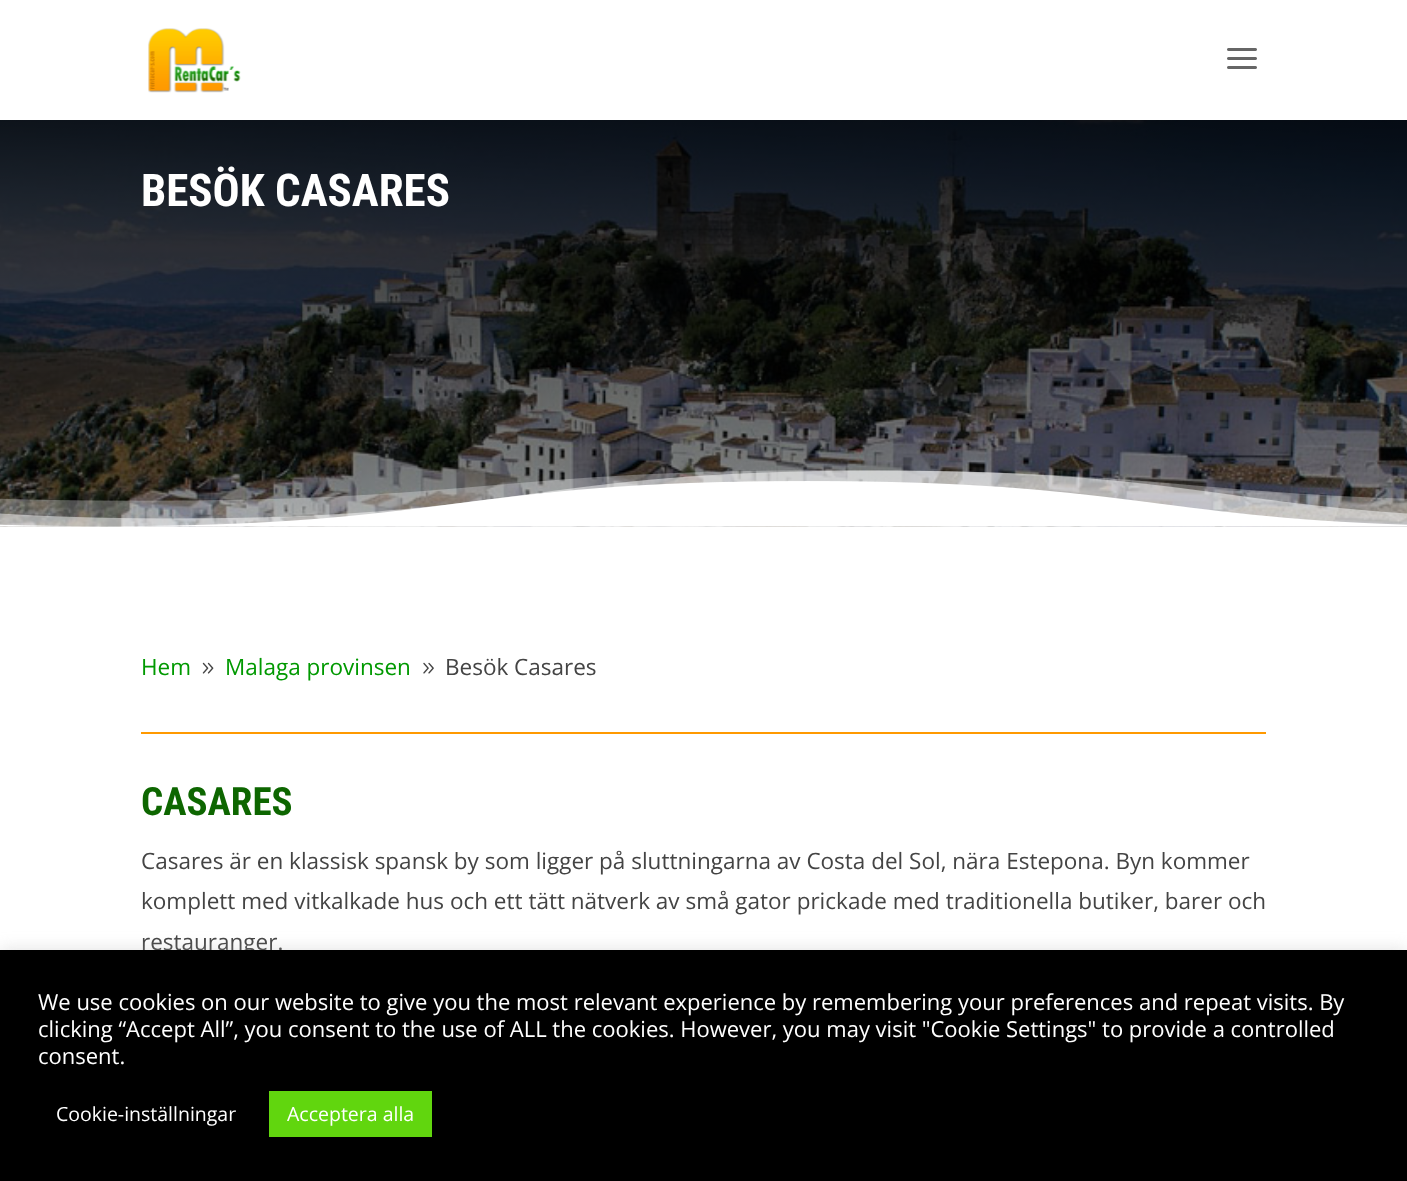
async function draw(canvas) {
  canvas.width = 1407
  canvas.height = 1181
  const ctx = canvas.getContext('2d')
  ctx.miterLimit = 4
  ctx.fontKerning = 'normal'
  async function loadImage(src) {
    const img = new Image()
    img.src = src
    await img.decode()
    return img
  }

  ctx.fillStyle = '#fff'
  ctx.fillRect(0, 0, 1407, 1181)
  ctx.drawImage(await loadImage('image0.png'), 148, 28, 93, 65)
  ctx.drawImage(await loadImage('image1.png'), 1227, 48, 30, 21)
  ctx.drawImage(await loadImage('image2.png'), 0, 120, 1407, 407)
  ctx.font = 'bold 45px Roboto Condensed'
  ctx.fillText('BESÖK CASARES', 141, 206)
  ctx.drawImage(await loadImage('image3.png'), 0, 470, 1407, 57)
  ctx.fillStyle = '#f90'
  ctx.fillRect(141, 732, 1125, 2)
  ctx.font = '22.5px Open Sans'
  ctx.fillStyle = '#090'
  ctx.fillText('Hem', 141, 675)
  ctx.drawImage(await loadImage('image4.png'), 202, 662, 12, 12)
  ctx.fillText('Malaga provinsen', 225, 675)
  ctx.drawImage(await loadImage('image5.png'), 423, 662, 11, 12)
  ctx.fillStyle = '#444'
  ctx.fillText('Besök Casares', 445, 675)
  ctx.font = 'bold 39px Roboto Condensed'
  ctx.fillStyle = '#0d6600'
  ctx.fillText('CASARES', 141, 815)
  ctx.font = '22.5px Open Sans'
  ctx.fillStyle = '#444'
  ctx.fillText('Casares är en klassisk spansk by som ligger på sluttningarna av Costa del Sol, nära Estepona. Byn kommer', 141, 869)
  ctx.fillText('komplett med vitkalkade hus och ett tätt nätverk av små gator prickade med traditionella butiker, barer och', 141, 909)
  ctx.fillText('restauranger.', 141, 950)
  ctx.fillStyle = '#acabab4d'
  ctx.filter = 'blur(7.5px)'
  ctx.beginPath()
  ctx.rect(0, 948, 1407, 233)
  ctx.fill()
  ctx.filter = 'none'
  ctx.fillStyle = '#000'
  ctx.fillRect(0, 950, 1407, 231)
  ctx.font = '22px Open Sans'
  ctx.fillStyle = '#fff'
  ctx.fillText('We use cookies on our website to give you the most relevant experience by remembering your preferences and repeat visits. By', 38, 1010)
  ctx.fillText('clicking “Accept All”, you consent to the use of ALL the cookies. However, you may visit "Cookie Settings" to provide a controlled', 38, 1037)
  ctx.fillText('consent.', 38, 1064)
  ctx.font = '19.5px Open Sans'
  ctx.fillText('Cookie-inställningar', 56, 1121)
  ctx.fillStyle = '#61d60e'
  ctx.fillRect(269, 1091, 163, 46)
  ctx.fillStyle = '#fff'
  ctx.fillText('Acceptera alla', 287, 1121)
}

draw(document.querySelector('canvas'))
